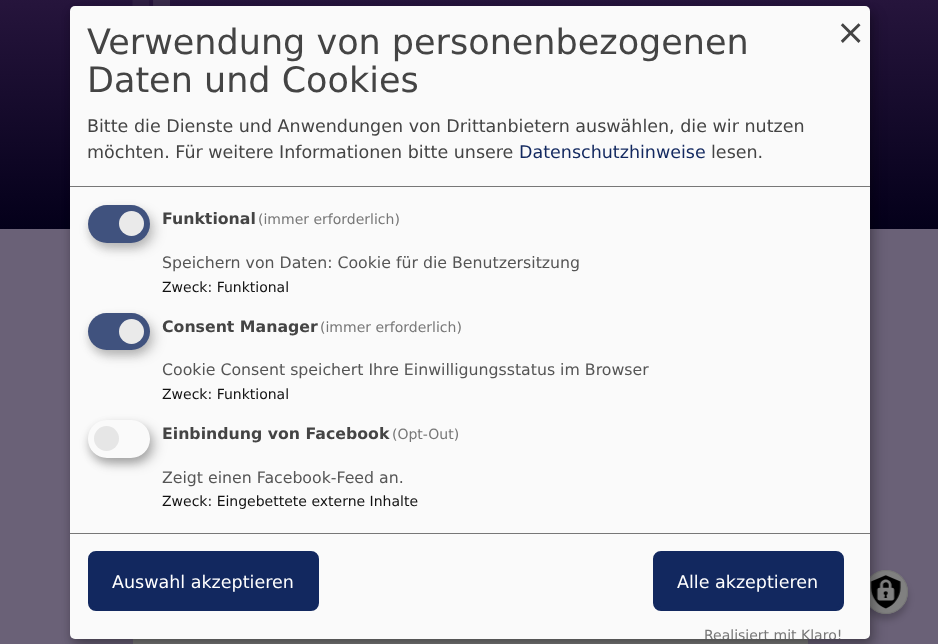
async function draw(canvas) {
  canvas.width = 938
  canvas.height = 644
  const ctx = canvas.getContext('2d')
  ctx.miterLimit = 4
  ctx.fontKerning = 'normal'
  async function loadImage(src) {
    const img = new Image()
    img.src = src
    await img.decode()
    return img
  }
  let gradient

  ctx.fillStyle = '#6a6177'
  ctx.fillRect(0, 0, 938, 644)
  gradient = ctx.createLinearGradient(469, -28, 469, 229)
  gradient.addColorStop(0, '#2a1740')
  gradient.addColorStop(1, '#04001a')
  ctx.fillStyle = gradient
  ctx.fillRect(0, 0, 938, 229)
  ctx.drawImage(await loadImage('image0.png'), 132, 0, 38, 6)
  ctx.fillStyle = '#7b7b7b'
  ctx.fillRect(133, 639, 675, 5)
  ctx.fillStyle = '#00000033'
  ctx.filter = 'blur(3px)'
  ctx.beginPath()
  ctx.roundRect(864, 576, 44, 44, 22)
  ctx.fill()
  ctx.filter = 'none'
  ctx.fillStyle = '#808080'
  ctx.beginPath()
  ctx.arc(886, 592, 22, 0, 2 * Math.PI)
  ctx.fill()
  ctx.drawImage(await loadImage('image1.png'), 870, 575, 31, 34)
  ctx.beginPath()
  ctx.arc(886, 592, 21.5, 0, 2 * Math.PI)
  ctx.strokeStyle = '#757575'
  ctx.stroke()
  ctx.fillStyle = '#00000030'
  ctx.filter = 'blur(6px)'
  ctx.beginPath()
  ctx.roundRect(76, 13, 800, 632, 5)
  ctx.fill()
  ctx.filter = 'none'
  ctx.fillStyle = '#00000033'
  ctx.filter = 'blur(4px)'
  ctx.beginPath()
  ctx.roundRect(70, 11, 800, 633, 5)
  ctx.fill()
  ctx.filter = 'none'
  ctx.fillStyle = '#fafafa'
  ctx.beginPath()
  ctx.roundRect(70, 6, 800, 633, 5)
  ctx.fill()
  ctx.fillStyle = '#777'
  ctx.fillRect(70, 186, 800, 1)
  ctx.font = '35px DejaVu Sans'
  ctx.fillStyle = '#444'
  ctx.fillText('Verwendung von personenbezogenen', 87, 54)
  ctx.fillText('Daten und Cookies', 87, 92)
  ctx.font = '17.5px DejaVu Sans'
  ctx.fillText('Bitte die Dienste und Anwendungen von Drittanbietern auswählen, die wir nutzen', 87, 132)
  ctx.fillText('möchten. Für weitere Informationen bitte unsere', 87, 158)
  ctx.fillStyle = '#12285f'
  ctx.fillText('Datenschutzhinweise', 519, 158)
  ctx.fillStyle = '#444'
  ctx.fillText('lesen.', 711, 158)
  ctx.font = '35px DejaVu Sans'
  ctx.fillText('×', 836, 44)
  ctx.fillStyle = '#00000026'
  ctx.filter = 'blur(6px)'
  ctx.beginPath()
  ctx.roundRect(94, 211, 62, 38, 19)
  ctx.fill()
  ctx.filter = 'none'
  ctx.fillStyle = '#32323233'
  ctx.filter = 'blur(4px)'
  ctx.beginPath()
  ctx.roundRect(88, 210, 62, 38, 19)
  ctx.fill()
  ctx.filter = 'none'
  ctx.fillStyle = '#40527e'
  ctx.beginPath()
  ctx.roundRect(88, 205, 62, 38, 19)
  ctx.fill()
  ctx.fillStyle = '#eaeaea'
  ctx.beginPath()
  ctx.arc(131.5, 223.5, 12.5, 0, 2 * Math.PI)
  ctx.fill()
  ctx.font = 'bold 15.75px DejaVu Sans'
  ctx.fillStyle = '#444'
  ctx.fillText('Funktional', 162, 224)
  ctx.font = '14px DejaVu Sans'
  ctx.fillStyle = '#777'
  ctx.fillText('(immer erforderlich)', 258, 224)
  ctx.font = '15.75px DejaVu Sans'
  ctx.fillStyle = '#555'
  ctx.fillText('Speichern von Daten: Cookie für die Benutzersitzung', 162, 268)
  ctx.font = '14px DejaVu Sans'
  ctx.fillStyle = '#111'
  ctx.fillText('Zweck: Funktional', 162, 292)
  ctx.fillStyle = '#00000026'
  ctx.filter = 'blur(6px)'
  ctx.beginPath()
  ctx.roundRect(94, 319, 62, 37, 18.5)
  ctx.fill()
  ctx.filter = 'none'
  ctx.fillStyle = '#32323233'
  ctx.filter = 'blur(4px)'
  ctx.beginPath()
  ctx.roundRect(88, 318, 62, 37, 18.5)
  ctx.fill()
  ctx.filter = 'none'
  ctx.fillStyle = '#40527e'
  ctx.beginPath()
  ctx.roundRect(88, 313, 62, 37, 18.5)
  ctx.fill()
  ctx.fillStyle = '#eaeaea'
  ctx.beginPath()
  ctx.arc(131.5, 331.5, 12.5, 0, 2 * Math.PI)
  ctx.fill()
  ctx.font = 'bold 15.75px DejaVu Sans'
  ctx.fillStyle = '#444'
  ctx.fillText('Consent Manager', 162, 332)
  ctx.font = '14px DejaVu Sans'
  ctx.fillStyle = '#777'
  ctx.fillText('(immer erforderlich)', 320, 332)
  ctx.font = '15.75px DejaVu Sans'
  ctx.fillStyle = '#555'
  ctx.fillText('Cookie Consent speichert Ihre Einwilligungsstatus im Browser', 162, 375)
  ctx.font = '14px DejaVu Sans'
  ctx.fillStyle = '#111'
  ctx.fillText('Zweck: Funktional', 162, 399)
  ctx.save()
  ctx.beginPath()
  ctx.moveTo(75, 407)
  ctx.lineTo(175, 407)
  ctx.lineTo(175, 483)
  ctx.lineTo(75, 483)
  ctx.closePath()
  ctx.moveTo(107, 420)
  ctx.lineTo(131, 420)
  ctx.bezierCurveTo(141.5, 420, 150, 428.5, 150, 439)
  ctx.bezierCurveTo(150, 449.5, 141.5, 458, 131, 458)
  ctx.lineTo(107, 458)
  ctx.bezierCurveTo(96.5, 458, 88, 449.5, 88, 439)
  ctx.bezierCurveTo(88, 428.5, 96.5, 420, 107, 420)
  ctx.closePath()
  ctx.clip('evenodd')
  ctx.fillStyle = '#00000030'
  ctx.filter = 'blur(6px)'
  ctx.beginPath()
  ctx.roundRect(94, 426, 62, 38, 19)
  ctx.fill()
  ctx.filter = 'none'
  ctx.restore()
  ctx.save()
  ctx.beginPath()
  ctx.moveTo(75, 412)
  ctx.lineTo(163, 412)
  ctx.lineTo(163, 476)
  ctx.lineTo(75, 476)
  ctx.closePath()
  ctx.moveTo(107, 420)
  ctx.lineTo(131, 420)
  ctx.bezierCurveTo(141.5, 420, 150, 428.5, 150, 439)
  ctx.bezierCurveTo(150, 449.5, 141.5, 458, 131, 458)
  ctx.lineTo(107, 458)
  ctx.bezierCurveTo(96.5, 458, 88, 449.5, 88, 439)
  ctx.bezierCurveTo(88, 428.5, 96.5, 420, 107, 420)
  ctx.closePath()
  ctx.clip('evenodd')
  ctx.fillStyle = '#00000033'
  ctx.filter = 'blur(4px)'
  ctx.beginPath()
  ctx.roundRect(88, 425, 62, 38, 19)
  ctx.fill()
  ctx.filter = 'none'
  ctx.restore()
  ctx.fillStyle = '#e6e6e6'
  ctx.beginPath()
  ctx.arc(106.5, 438.5, 12.5, 0, 2 * Math.PI)
  ctx.fill()
  ctx.font = 'bold 15.75px DejaVu Sans'
  ctx.fillStyle = '#444'
  ctx.fillText('Einbindung von Facebook', 162, 439)
  ctx.font = '14px DejaVu Sans'
  ctx.fillStyle = '#777'
  ctx.fillText('(Opt-Out)', 392, 439)
  ctx.font = '15.75px DejaVu Sans'
  ctx.fillStyle = '#555'
  ctx.fillText('Zeigt einen Facebook-Feed an.', 162, 483)
  ctx.font = '14px DejaVu Sans'
  ctx.fillStyle = '#111'
  ctx.fillText('Zweck: Eingebettete externe Inhalte', 162, 506)
  ctx.fillStyle = '#777'
  ctx.fillRect(70, 533, 800, 1)
  ctx.fillStyle = '#12285f'
  ctx.beginPath()
  ctx.roundRect(90, 553, 227, 56, 6)
  ctx.fill()
  ctx.strokeStyle = '#12285f'
  ctx.lineWidth = 4
  ctx.stroke()
  ctx.font = '17.5px DejaVu Sans'
  ctx.fillStyle = '#fff'
  ctx.fillText('Auswahl akzeptieren', 112, 588)
  ctx.fillStyle = '#12285f'
  ctx.beginPath()
  ctx.roundRect(655, 553, 187, 56, 6)
  ctx.fill()
  ctx.stroke()
  ctx.fillStyle = '#fff'
  ctx.fillText('Alle akzeptieren', 677, 588)
  ctx.save()
  ctx.beginPath()
  ctx.roundRect(70, 6, 800, 633, 5)
  ctx.clip()
  ctx.font = '14px DejaVu Sans'
  ctx.fillStyle = '#777'
  ctx.fillText('Realisiert mit Klaro!', 704, 640)
  ctx.restore()
}

draw(document.querySelector('canvas'))
